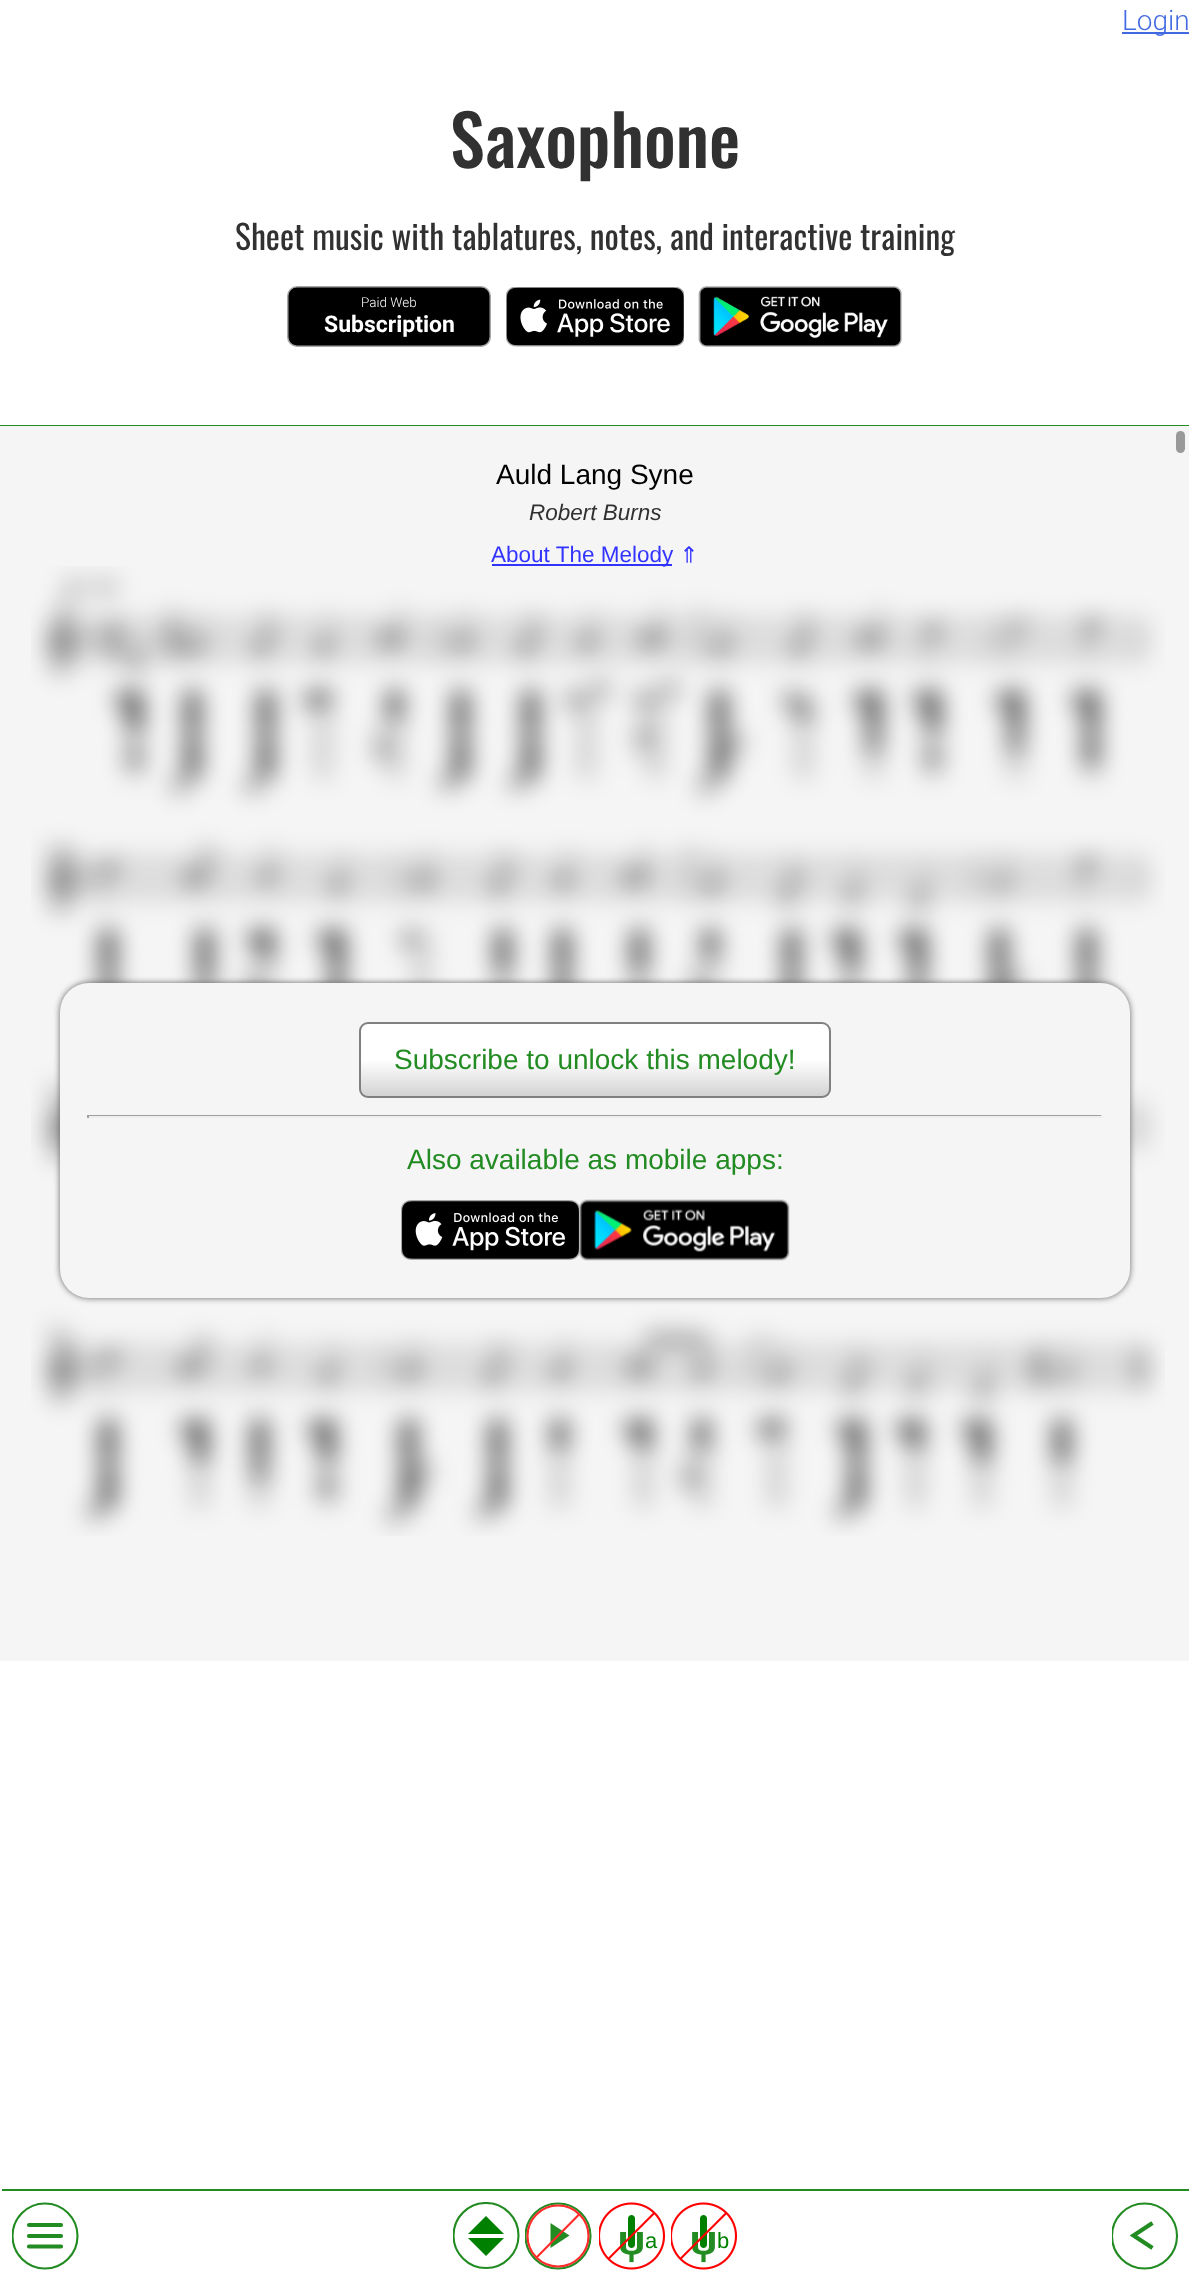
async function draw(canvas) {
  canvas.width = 1189
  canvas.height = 2279
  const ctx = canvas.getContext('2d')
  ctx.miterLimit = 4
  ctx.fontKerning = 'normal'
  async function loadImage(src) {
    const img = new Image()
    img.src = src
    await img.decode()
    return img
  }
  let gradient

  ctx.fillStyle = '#fff'
  ctx.fillRect(0, 0, 1189, 2279)
  ctx.fillStyle = '#228b22'
  ctx.fillRect(0, 425, 1189, 1)
  ctx.fillStyle = '#4169e1'
  ctx.fillRect(1122, 32, 67, 2)
  ctx.font = '300 28px Roboto'
  ctx.fillText('Login', 1122, 30)
  ctx.font = '500 70px Oswald'
  ctx.fillStyle = '#313131'
  ctx.fillText('Saxophone', 450, 168)
  ctx.font = '33.6px Oswald'
  ctx.fillText('Sheet music with tablatures, notes, and interactive training', 235, 250)
  ctx.fillStyle = '#000'
  ctx.beginPath()
  ctx.roundRect(287.75, 286.75, 202.5, 59.5, 9.25)
  ctx.fill()
  ctx.strokeStyle = '#a6a6a6'
  ctx.lineWidth = 1.5
  ctx.stroke()
  ctx.font = '300 13.5px Roboto'
  ctx.fillStyle = '#fff'
  ctx.fillText('Paid Web', 361, 307)
  ctx.font = 'bold 23px Roboto'
  ctx.fillText('Subscription', 324, 332)
  ctx.drawImage(await loadImage('image0.png'), 506, 287, 178, 60)
  ctx.drawImage(await loadImage('image1.png'), 698, 286, 204, 61)
  ctx.fillStyle = '#f5f5f5'
  ctx.fillRect(0, 426, 1189, 1235)
  ctx.fillStyle = '#999'
  ctx.beginPath()
  ctx.roundRect(1176, 431, 9, 22, 4.5)
  ctx.fill()
  ctx.font = '28px Liberation Sans'
  ctx.fillStyle = '#000'
  ctx.fillText('Auld Lang Syne', 496, 484)
  ctx.font = 'italic 22.5px Liberation Sans'
  ctx.fillStyle = '#313131'
  ctx.fillText('Robert Burns', 529, 520)
  ctx.fillStyle = '#33f'
  ctx.fillRect(492, 564, 180, 2)
  ctx.drawImage(await loadImage('image2.png'), 31, 566, 1134, 970)
  ctx.font = '22.5px Liberation Sans'
  ctx.fillText('About The Melody', 491, 562)
  ctx.font = '22.5px DejaVu Sans'
  ctx.save()
  ctx.translate(696, 564)
  ctx.rotate(-90 * Math.PI / 180)
  ctx.fillText('⇒', 0, 0)
  ctx.restore()
  ctx.fillStyle = '#666'
  ctx.filter = 'blur(3px)'
  ctx.beginPath()
  ctx.roundRect(60, 983, 1070, 315, 29)
  ctx.fill()
  ctx.filter = 'none'
  ctx.fillStyle = '#f5f5f5'
  ctx.beginPath()
  ctx.roundRect(60, 983, 1070, 315, 29)
  ctx.fill()
  ctx.save()
  ctx.beginPath()
  ctx.roundRect(359, 1022, 472, 76, 9)
  ctx.clip()
  gradient = ctx.createLinearGradient(595, 1096, 595, 1023)
  gradient.addColorStop(0, '#d3d3d3')
  gradient.addColorStop(0.5, '#fff')
  gradient.addColorStop(1, '#fff')
  ctx.fillStyle = gradient
  ctx.fillRect(359, 1023, 472, 74)
  ctx.restore()
  ctx.beginPath()
  ctx.roundRect(360, 1023, 470, 74, 8)
  ctx.strokeStyle = '#808080'
  ctx.lineWidth = 2
  ctx.stroke()
  ctx.font = '28px Liberation Sans'
  ctx.fillStyle = '#228b22'
  ctx.fillText('Subscribe to unlock this melody!', 394, 1069)
  ctx.fillStyle = '#9f9f9f'
  ctx.fillRect(87, 1115, 1016, 1)
  ctx.fillStyle = '#eee'
  ctx.fillRect(1101, 1115, 2, 3)
  ctx.fillRect(87, 1116, 1016, 2)
  ctx.fillStyle = '#9f9f9f'
  ctx.fillRect(87, 1115, 2, 3)
  ctx.fillStyle = '#228b22'
  ctx.fillText('Also available as mobile apps:', 407, 1169)
  ctx.drawImage(await loadImage('image3.png'), 401, 1200, 178, 60)
  ctx.drawImage(await loadImage('image4.png'), 579, 1199, 211, 62)
  ctx.fillRect(2, 2189, 1187, 2)
  ctx.save()
  ctx.beginPath()
  ctx.rect(12, 2202, 68, 68)
  ctx.clip()
  ctx.beginPath()
  ctx.arc(45, 2236, 32.5, 0, 2 * Math.PI)
  ctx.strokeStyle = '#228b22'
  ctx.lineWidth = 2.1
  ctx.stroke()
  ctx.restore()
  ctx.beginPath()
  ctx.moveTo(29, 2236)
  ctx.lineTo(61, 2236)
  ctx.moveTo(29, 2246.5)
  ctx.lineTo(61, 2246.5)
  ctx.moveTo(29, 2225)
  ctx.lineTo(61, 2225)
  ctx.strokeStyle = '#228b22'
  ctx.lineWidth = 4.2
  ctx.lineCap = 'round'
  ctx.stroke()
  ctx.save()
  ctx.beginPath()
  ctx.rect(453, 2202, 68, 68)
  ctx.clip()
  ctx.beginPath()
  ctx.arc(486, 2235.5, 32.5, 0, 2 * Math.PI)
  ctx.lineWidth = 2.1
  ctx.stroke()
  ctx.restore()
  ctx.fillStyle = '#008000'
  ctx.beginPath()
  ctx.moveTo(486, 2216)
  ctx.lineTo(504, 2234)
  ctx.lineTo(468, 2234)
  ctx.closePath()
  ctx.moveTo(486, 2256)
  ctx.lineTo(504, 2238)
  ctx.lineTo(468, 2238)
  ctx.closePath()
  ctx.fill()
  ctx.save()
  ctx.beginPath()
  ctx.rect(525, 2202, 68, 68)
  ctx.clip()
  ctx.beginPath()
  ctx.arc(558, 2236, 32.5, 0, 2 * Math.PI)
  ctx.lineWidth = 2.1
  ctx.stroke()
  ctx.restore()
  ctx.fillStyle = '#228b22'
  ctx.beginPath()
  ctx.moveTo(550.5, 2248)
  ctx.lineTo(550.5, 2223)
  ctx.lineTo(569.5, 2235.5)
  ctx.closePath()
  ctx.fill()
  ctx.beginPath()
  ctx.arc(558, 2236, 30.5, 0, 2 * Math.PI)
  ctx.strokeStyle = '#ff2a2a'
  ctx.lineWidth = 2.1
  ctx.stroke()
  ctx.beginPath()
  ctx.moveTo(579.5, 2214)
  ctx.lineTo(536.5, 2257.5)
  ctx.lineCap = 'butt'
  ctx.stroke()
  ctx.drawImage(await loadImage('image5.png'), 599, 2202, 67, 68)
  ctx.font = '22px Liberation Sans'
  ctx.fillStyle = '#008000'
  ctx.fillText('a', 645, 2248)
  ctx.drawImage(await loadImage('image5.png'), 671, 2202, 67, 68)
  ctx.fillText('b', 717, 2248)
  ctx.save()
  ctx.beginPath()
  ctx.rect(1112, 2202, 67, 68)
  ctx.clip()
  ctx.beginPath()
  ctx.arc(1144.5, 2236, 32.5, 0, 2 * Math.PI)
  ctx.strokeStyle = '#228b22'
  ctx.stroke()
  ctx.restore()
  ctx.beginPath()
  ctx.moveTo(1152.5, 2248)
  ctx.lineTo(1133.5, 2235.5)
  ctx.lineTo(1152.5, 2223)
  ctx.strokeStyle = '#228b22'
  ctx.lineWidth = 4.2
  ctx.stroke()
}

draw(document.querySelector('canvas'))
